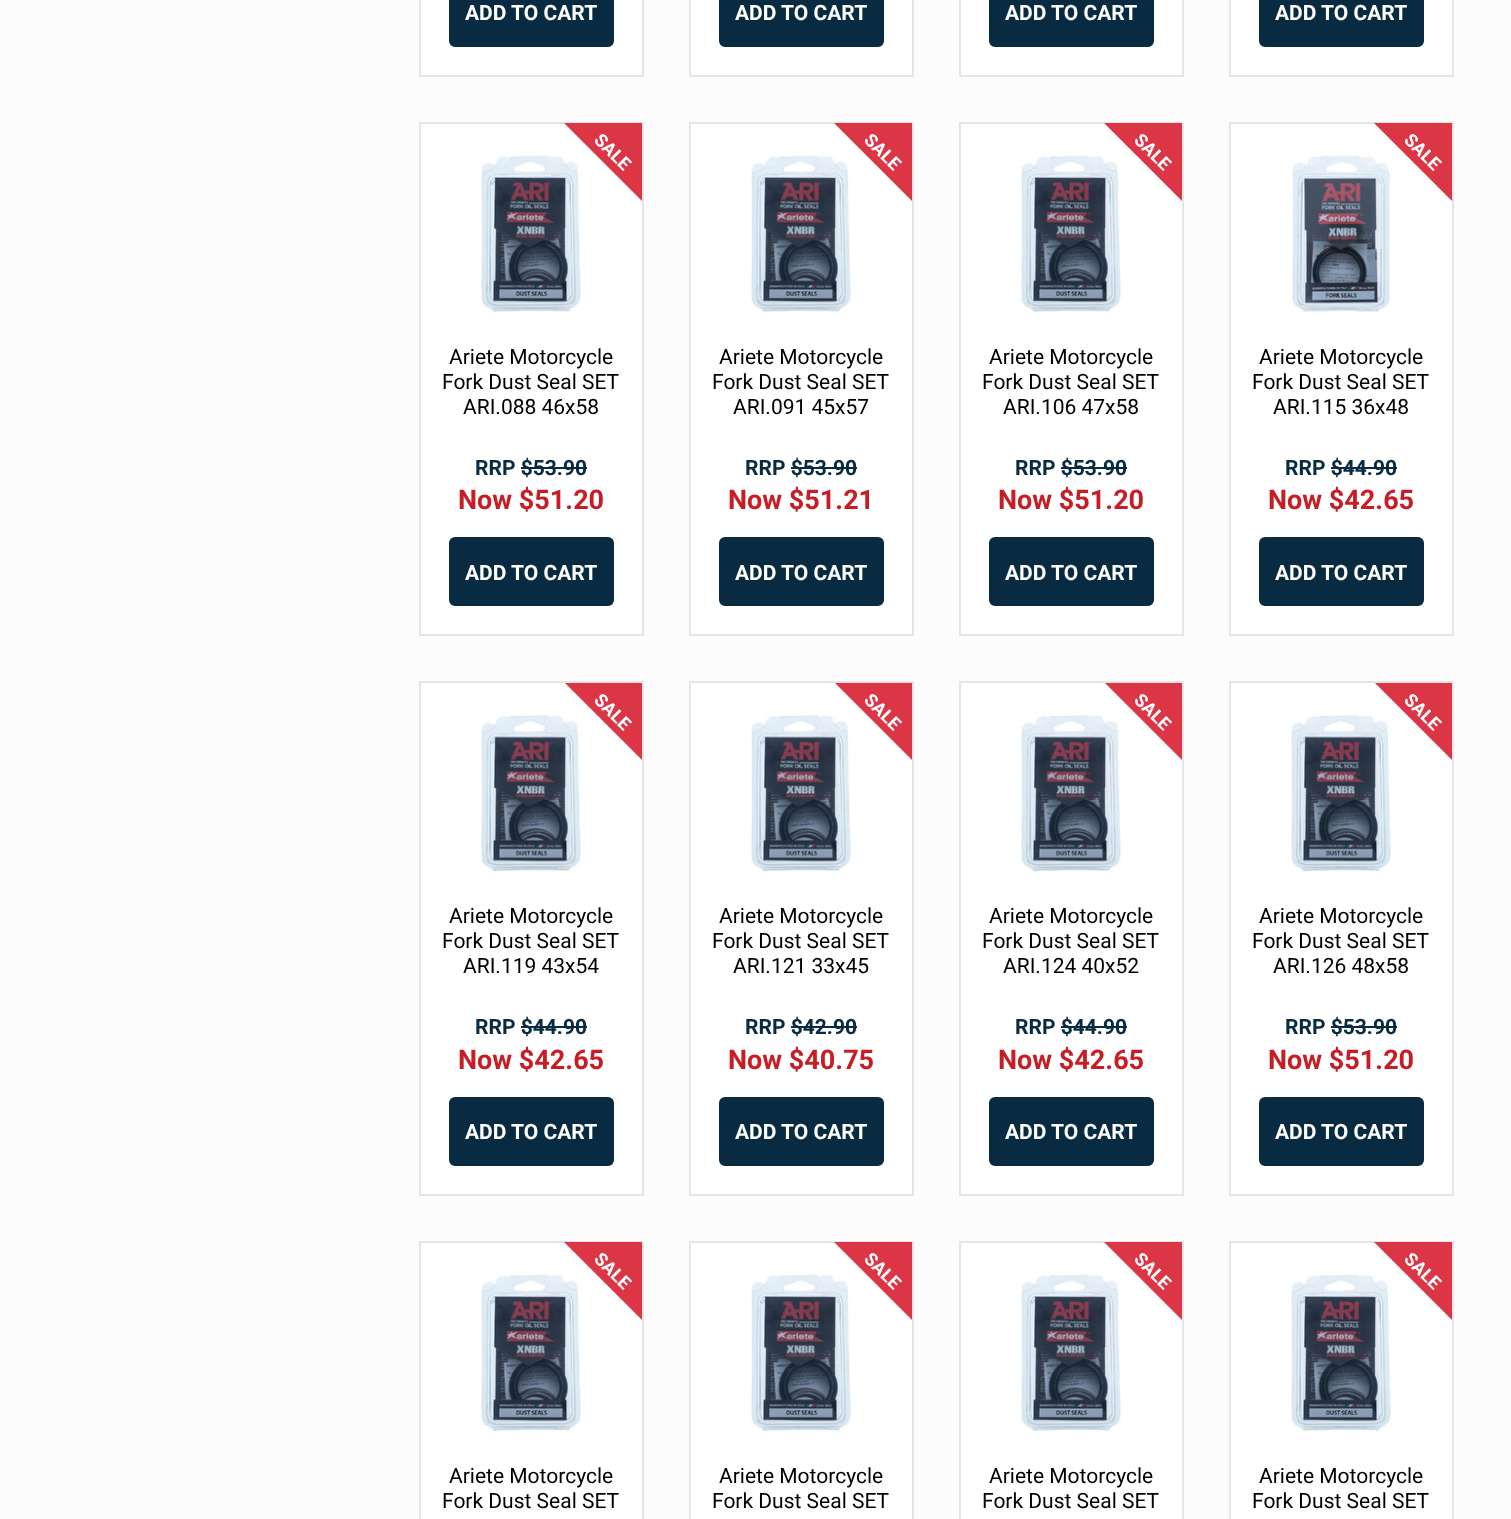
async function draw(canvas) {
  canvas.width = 1511
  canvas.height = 1519
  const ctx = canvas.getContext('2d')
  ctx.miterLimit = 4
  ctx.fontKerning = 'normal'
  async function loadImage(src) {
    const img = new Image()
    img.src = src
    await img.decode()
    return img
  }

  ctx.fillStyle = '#fcfcfc'
  ctx.fillRect(0, 0, 1511, 1519)
  ctx.fillStyle = '#fff'
  ctx.beginPath()
  ctx.rect(420, -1, 223, 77)
  ctx.fill()
  ctx.strokeStyle = '#e5e5e5'
  ctx.lineWidth = 2
  ctx.stroke()
  ctx.fillStyle = '#092b41'
  ctx.beginPath()
  ctx.roundRect(450, -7, 163, 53, 5)
  ctx.fill()
  ctx.strokeStyle = '#092b41'
  ctx.stroke()
  ctx.font = 'bold 21px Roboto'
  ctx.fillStyle = '#fff'
  ctx.fillText('ADD TO CART', 465, 20)
  ctx.beginPath()
  ctx.rect(690, -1, 223, 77)
  ctx.fill()
  ctx.strokeStyle = '#e5e5e5'
  ctx.stroke()
  ctx.fillStyle = '#092b41'
  ctx.beginPath()
  ctx.roundRect(720, -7, 163, 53, 5)
  ctx.fill()
  ctx.strokeStyle = '#092b41'
  ctx.stroke()
  ctx.fillStyle = '#fff'
  ctx.fillText('ADD TO CART', 735, 20)
  ctx.beginPath()
  ctx.rect(960, -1, 223, 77)
  ctx.fill()
  ctx.strokeStyle = '#e5e5e5'
  ctx.stroke()
  ctx.fillStyle = '#092b41'
  ctx.beginPath()
  ctx.roundRect(990, -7, 163, 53, 5)
  ctx.fill()
  ctx.strokeStyle = '#092b41'
  ctx.stroke()
  ctx.fillStyle = '#fff'
  ctx.fillText('ADD TO CART', 1005, 20)
  ctx.beginPath()
  ctx.rect(1230, -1, 223, 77)
  ctx.fill()
  ctx.strokeStyle = '#e5e5e5'
  ctx.stroke()
  ctx.fillStyle = '#092b41'
  ctx.beginPath()
  ctx.roundRect(1260, -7, 163, 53, 5)
  ctx.fill()
  ctx.strokeStyle = '#092b41'
  ctx.stroke()
  ctx.fillStyle = '#fff'
  ctx.fillText('ADD TO CART', 1275, 20)
  ctx.beginPath()
  ctx.rect(420, 123, 223, 512)
  ctx.fill()
  ctx.strokeStyle = '#e5e5e5'
  ctx.stroke()
  ctx.drawImage(await loadImage('image0.png'), 481, 155, 100, 158)
  ctx.fillStyle = '#dc3545'
  ctx.beginPath()
  ctx.moveTo(564, 123)
  ctx.lineTo(642, 123)
  ctx.lineTo(642, 201)
  ctx.closePath()
  ctx.fill()
  ctx.font = 'bold 18px Roboto'
  ctx.fillStyle = '#fff'
  ctx.save()
  ctx.translate(593, 141)
  ctx.rotate(45 * Math.PI / 180)
  ctx.fillText('SALE', 0, 0)
  ctx.restore()
  ctx.font = '21px Roboto'
  ctx.fillStyle = '#000'
  ctx.fillText('Ariete Motorcycle', 449, 364)
  ctx.fillText('Fork Dust Seal SET', 442, 389)
  ctx.fillText('ARI.088 46x58', 463, 414)
  ctx.font = 'bold 21px Roboto'
  ctx.fillStyle = '#092b41'
  ctx.fillText('RRP $53.90', 475, 475)
  ctx.fillRect(521, 467, 66, 2)
  ctx.font = 'bold 27px Roboto'
  ctx.fillStyle = '#c81d24'
  ctx.fillText('Now $51.20', 458, 509)
  ctx.fillStyle = '#092b41'
  ctx.beginPath()
  ctx.roundRect(450, 538, 163, 67, 5)
  ctx.fill()
  ctx.strokeStyle = '#092b41'
  ctx.stroke()
  ctx.font = 'bold 21px Roboto'
  ctx.fillStyle = '#fff'
  ctx.fillText('ADD TO CART', 465, 580)
  ctx.beginPath()
  ctx.rect(690, 123, 223, 512)
  ctx.fill()
  ctx.strokeStyle = '#e5e5e5'
  ctx.stroke()
  ctx.drawImage(await loadImage('image0.png'), 751, 155, 100, 158)
  ctx.fillStyle = '#dc3545'
  ctx.beginPath()
  ctx.moveTo(834, 123)
  ctx.lineTo(912, 123)
  ctx.lineTo(912, 201)
  ctx.closePath()
  ctx.fill()
  ctx.font = 'bold 18px Roboto'
  ctx.fillStyle = '#fff'
  ctx.save()
  ctx.translate(863, 141)
  ctx.rotate(45 * Math.PI / 180)
  ctx.fillText('SALE', 0, 0)
  ctx.restore()
  ctx.font = '21px Roboto'
  ctx.fillStyle = '#000'
  ctx.fillText('Ariete Motorcycle', 719, 364)
  ctx.fillText('Fork Dust Seal SET', 712, 389)
  ctx.fillText('ARI.091 45x57', 733, 414)
  ctx.font = 'bold 21px Roboto'
  ctx.fillStyle = '#092b41'
  ctx.fillText('RRP $53.90', 745, 475)
  ctx.fillRect(791, 467, 66, 2)
  ctx.font = 'bold 27px Roboto'
  ctx.fillStyle = '#c81d24'
  ctx.fillText('Now $51.21', 728, 509)
  ctx.fillStyle = '#092b41'
  ctx.beginPath()
  ctx.roundRect(720, 538, 163, 67, 5)
  ctx.fill()
  ctx.strokeStyle = '#092b41'
  ctx.stroke()
  ctx.font = 'bold 21px Roboto'
  ctx.fillStyle = '#fff'
  ctx.fillText('ADD TO CART', 735, 580)
  ctx.beginPath()
  ctx.rect(960, 123, 223, 512)
  ctx.fill()
  ctx.strokeStyle = '#e5e5e5'
  ctx.stroke()
  ctx.drawImage(await loadImage('image0.png'), 1021, 155, 100, 158)
  ctx.fillStyle = '#dc3545'
  ctx.beginPath()
  ctx.moveTo(1104, 123)
  ctx.lineTo(1182, 123)
  ctx.lineTo(1182, 201)
  ctx.closePath()
  ctx.fill()
  ctx.font = 'bold 18px Roboto'
  ctx.fillStyle = '#fff'
  ctx.save()
  ctx.translate(1133, 141)
  ctx.rotate(45 * Math.PI / 180)
  ctx.fillText('SALE', 0, 0)
  ctx.restore()
  ctx.font = '21px Roboto'
  ctx.fillStyle = '#000'
  ctx.fillText('Ariete Motorcycle', 989, 364)
  ctx.fillText('Fork Dust Seal SET', 982, 389)
  ctx.fillText('ARI.106 47x58', 1003, 414)
  ctx.font = 'bold 21px Roboto'
  ctx.fillStyle = '#092b41'
  ctx.fillText('RRP $53.90', 1015, 475)
  ctx.fillRect(1061, 467, 66, 2)
  ctx.font = 'bold 27px Roboto'
  ctx.fillStyle = '#c81d24'
  ctx.fillText('Now $51.20', 998, 509)
  ctx.fillStyle = '#092b41'
  ctx.beginPath()
  ctx.roundRect(990, 538, 163, 67, 5)
  ctx.fill()
  ctx.strokeStyle = '#092b41'
  ctx.stroke()
  ctx.font = 'bold 21px Roboto'
  ctx.fillStyle = '#fff'
  ctx.fillText('ADD TO CART', 1005, 580)
  ctx.beginPath()
  ctx.rect(1230, 123, 223, 512)
  ctx.fill()
  ctx.strokeStyle = '#e5e5e5'
  ctx.stroke()
  ctx.drawImage(await loadImage('image1.png'), 1290, 153, 102, 161)
  ctx.fillStyle = '#dc3545'
  ctx.beginPath()
  ctx.moveTo(1374, 123)
  ctx.lineTo(1452, 123)
  ctx.lineTo(1452, 201)
  ctx.closePath()
  ctx.fill()
  ctx.font = 'bold 18px Roboto'
  ctx.fillStyle = '#fff'
  ctx.save()
  ctx.translate(1403, 141)
  ctx.rotate(45 * Math.PI / 180)
  ctx.fillText('SALE', 0, 0)
  ctx.restore()
  ctx.font = '21px Roboto'
  ctx.fillStyle = '#000'
  ctx.fillText('Ariete Motorcycle', 1259, 364)
  ctx.fillText('Fork Dust Seal SET', 1252, 389)
  ctx.fillText('ARI.115 36x48', 1273, 414)
  ctx.font = 'bold 21px Roboto'
  ctx.fillStyle = '#092b41'
  ctx.fillText('RRP $44.90', 1285, 475)
  ctx.fillRect(1331, 467, 66, 2)
  ctx.font = 'bold 27px Roboto'
  ctx.fillStyle = '#c81d24'
  ctx.fillText('Now $42.65', 1268, 509)
  ctx.fillStyle = '#092b41'
  ctx.beginPath()
  ctx.roundRect(1260, 538, 163, 67, 5)
  ctx.fill()
  ctx.strokeStyle = '#092b41'
  ctx.stroke()
  ctx.font = 'bold 21px Roboto'
  ctx.fillStyle = '#fff'
  ctx.fillText('ADD TO CART', 1275, 580)
  ctx.beginPath()
  ctx.rect(420, 682, 223, 513)
  ctx.fill()
  ctx.strokeStyle = '#e5e5e5'
  ctx.stroke()
  ctx.drawImage(await loadImage('image2.png'), 481, 714, 100, 160)
  ctx.save()
  ctx.beginPath()
  ctx.rect(420, 683, 222, 511)
  ctx.clip()
  ctx.fillStyle = '#dc3545'
  ctx.beginPath()
  ctx.moveTo(564, 682)
  ctx.lineTo(642, 682)
  ctx.lineTo(642, 760)
  ctx.closePath()
  ctx.fill()
  ctx.restore()
  ctx.font = 'bold 18px Roboto'
  ctx.save()
  ctx.translate(593, 701)
  ctx.rotate(45 * Math.PI / 180)
  ctx.fillText('SALE', 0, 0)
  ctx.restore()
  ctx.font = '21px Roboto'
  ctx.fillStyle = '#000'
  ctx.fillText('Ariete Motorcycle', 449, 923)
  ctx.fillText('Fork Dust Seal SET', 442, 948)
  ctx.fillText('ARI.119 43x54', 463, 973)
  ctx.font = 'bold 21px Roboto'
  ctx.fillStyle = '#092b41'
  ctx.fillText('RRP $44.90', 475, 1034)
  ctx.fillRect(521, 1026, 66, 2)
  ctx.font = 'bold 27px Roboto'
  ctx.fillStyle = '#c81d24'
  ctx.fillText('Now $42.65', 458, 1069)
  ctx.fillStyle = '#092b41'
  ctx.beginPath()
  ctx.roundRect(450, 1098, 163, 67, 5)
  ctx.fill()
  ctx.strokeStyle = '#092b41'
  ctx.stroke()
  ctx.font = 'bold 21px Roboto'
  ctx.fillStyle = '#fff'
  ctx.fillText('ADD TO CART', 465, 1139)
  ctx.beginPath()
  ctx.rect(690, 682, 223, 513)
  ctx.fill()
  ctx.strokeStyle = '#e5e5e5'
  ctx.stroke()
  ctx.drawImage(await loadImage('image2.png'), 751, 714, 100, 160)
  ctx.save()
  ctx.beginPath()
  ctx.rect(690, 683, 222, 511)
  ctx.clip()
  ctx.fillStyle = '#dc3545'
  ctx.beginPath()
  ctx.moveTo(834, 682)
  ctx.lineTo(912, 682)
  ctx.lineTo(912, 760)
  ctx.closePath()
  ctx.fill()
  ctx.restore()
  ctx.font = 'bold 18px Roboto'
  ctx.save()
  ctx.translate(863, 701)
  ctx.rotate(45 * Math.PI / 180)
  ctx.fillText('SALE', 0, 0)
  ctx.restore()
  ctx.font = '21px Roboto'
  ctx.fillStyle = '#000'
  ctx.fillText('Ariete Motorcycle', 719, 923)
  ctx.fillText('Fork Dust Seal SET', 712, 948)
  ctx.fillText('ARI.121 33x45', 733, 973)
  ctx.font = 'bold 21px Roboto'
  ctx.fillStyle = '#092b41'
  ctx.fillText('RRP $42.90', 745, 1034)
  ctx.fillRect(791, 1026, 66, 2)
  ctx.font = 'bold 27px Roboto'
  ctx.fillStyle = '#c81d24'
  ctx.fillText('Now $40.75', 728, 1069)
  ctx.fillStyle = '#092b41'
  ctx.beginPath()
  ctx.roundRect(720, 1098, 163, 67, 5)
  ctx.fill()
  ctx.strokeStyle = '#092b41'
  ctx.stroke()
  ctx.font = 'bold 21px Roboto'
  ctx.fillStyle = '#fff'
  ctx.fillText('ADD TO CART', 735, 1139)
  ctx.beginPath()
  ctx.rect(960, 682, 223, 513)
  ctx.fill()
  ctx.strokeStyle = '#e5e5e5'
  ctx.stroke()
  ctx.drawImage(await loadImage('image2.png'), 1021, 714, 100, 160)
  ctx.save()
  ctx.beginPath()
  ctx.rect(960, 683, 222, 511)
  ctx.clip()
  ctx.fillStyle = '#dc3545'
  ctx.beginPath()
  ctx.moveTo(1104, 682)
  ctx.lineTo(1182, 682)
  ctx.lineTo(1182, 760)
  ctx.closePath()
  ctx.fill()
  ctx.restore()
  ctx.font = 'bold 18px Roboto'
  ctx.save()
  ctx.translate(1133, 701)
  ctx.rotate(45 * Math.PI / 180)
  ctx.fillText('SALE', 0, 0)
  ctx.restore()
  ctx.font = '21px Roboto'
  ctx.fillStyle = '#000'
  ctx.fillText('Ariete Motorcycle', 989, 923)
  ctx.fillText('Fork Dust Seal SET', 982, 948)
  ctx.fillText('ARI.124 40x52', 1003, 973)
  ctx.font = 'bold 21px Roboto'
  ctx.fillStyle = '#092b41'
  ctx.fillText('RRP $44.90', 1015, 1034)
  ctx.fillRect(1061, 1026, 66, 2)
  ctx.font = 'bold 27px Roboto'
  ctx.fillStyle = '#c81d24'
  ctx.fillText('Now $42.65', 998, 1069)
  ctx.fillStyle = '#092b41'
  ctx.beginPath()
  ctx.roundRect(990, 1098, 163, 67, 5)
  ctx.fill()
  ctx.strokeStyle = '#092b41'
  ctx.stroke()
  ctx.font = 'bold 21px Roboto'
  ctx.fillStyle = '#fff'
  ctx.fillText('ADD TO CART', 1005, 1139)
  ctx.beginPath()
  ctx.rect(1230, 682, 223, 513)
  ctx.fill()
  ctx.strokeStyle = '#e5e5e5'
  ctx.stroke()
  ctx.drawImage(await loadImage('image2.png'), 1291, 714, 100, 160)
  ctx.save()
  ctx.beginPath()
  ctx.rect(1230, 683, 222, 511)
  ctx.clip()
  ctx.fillStyle = '#dc3545'
  ctx.beginPath()
  ctx.moveTo(1374, 682)
  ctx.lineTo(1452, 682)
  ctx.lineTo(1452, 760)
  ctx.closePath()
  ctx.fill()
  ctx.restore()
  ctx.font = 'bold 18px Roboto'
  ctx.save()
  ctx.translate(1403, 701)
  ctx.rotate(45 * Math.PI / 180)
  ctx.fillText('SALE', 0, 0)
  ctx.restore()
  ctx.font = '21px Roboto'
  ctx.fillStyle = '#000'
  ctx.fillText('Ariete Motorcycle', 1259, 923)
  ctx.fillText('Fork Dust Seal SET', 1252, 948)
  ctx.fillText('ARI.126 48x58', 1273, 973)
  ctx.font = 'bold 21px Roboto'
  ctx.fillStyle = '#092b41'
  ctx.fillText('RRP $53.90', 1285, 1034)
  ctx.fillRect(1331, 1026, 66, 2)
  ctx.font = 'bold 27px Roboto'
  ctx.fillStyle = '#c81d24'
  ctx.fillText('Now $51.20', 1268, 1069)
  ctx.fillStyle = '#092b41'
  ctx.beginPath()
  ctx.roundRect(1260, 1098, 163, 67, 5)
  ctx.fill()
  ctx.strokeStyle = '#092b41'
  ctx.stroke()
  ctx.font = 'bold 21px Roboto'
  ctx.fillStyle = '#fff'
  ctx.fillText('ADD TO CART', 1275, 1139)
  ctx.beginPath()
  ctx.rect(420, 1242, 223, 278)
  ctx.fill()
  ctx.strokeStyle = '#e5e5e5'
  ctx.stroke()
  ctx.drawImage(await loadImage('image0.png'), 481, 1274, 100, 158)
  ctx.fillStyle = '#dc3545'
  ctx.beginPath()
  ctx.moveTo(564, 1242)
  ctx.lineTo(642, 1242)
  ctx.lineTo(642, 1320)
  ctx.closePath()
  ctx.fill()
  ctx.font = 'bold 18px Roboto'
  ctx.fillStyle = '#fff'
  ctx.save()
  ctx.translate(593, 1260)
  ctx.rotate(45 * Math.PI / 180)
  ctx.fillText('SALE', 0, 0)
  ctx.restore()
  ctx.font = '21px Roboto'
  ctx.fillStyle = '#000'
  ctx.fillText('Ariete Motorcycle', 449, 1483)
  ctx.fillText('Fork Dust Seal SET', 442, 1508)
  ctx.fillStyle = '#fff'
  ctx.beginPath()
  ctx.rect(690, 1242, 223, 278)
  ctx.fill()
  ctx.stroke()
  ctx.drawImage(await loadImage('image0.png'), 751, 1274, 100, 158)
  ctx.fillStyle = '#dc3545'
  ctx.beginPath()
  ctx.moveTo(834, 1242)
  ctx.lineTo(912, 1242)
  ctx.lineTo(912, 1320)
  ctx.closePath()
  ctx.fill()
  ctx.font = 'bold 18px Roboto'
  ctx.fillStyle = '#fff'
  ctx.save()
  ctx.translate(863, 1260)
  ctx.rotate(45 * Math.PI / 180)
  ctx.fillText('SALE', 0, 0)
  ctx.restore()
  ctx.font = '21px Roboto'
  ctx.fillStyle = '#000'
  ctx.fillText('Ariete Motorcycle', 719, 1483)
  ctx.fillText('Fork Dust Seal SET', 712, 1508)
  ctx.fillStyle = '#fff'
  ctx.beginPath()
  ctx.rect(960, 1242, 223, 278)
  ctx.fill()
  ctx.stroke()
  ctx.drawImage(await loadImage('image0.png'), 1021, 1274, 100, 158)
  ctx.fillStyle = '#dc3545'
  ctx.beginPath()
  ctx.moveTo(1104, 1242)
  ctx.lineTo(1182, 1242)
  ctx.lineTo(1182, 1320)
  ctx.closePath()
  ctx.fill()
  ctx.font = 'bold 18px Roboto'
  ctx.fillStyle = '#fff'
  ctx.save()
  ctx.translate(1133, 1260)
  ctx.rotate(45 * Math.PI / 180)
  ctx.fillText('SALE', 0, 0)
  ctx.restore()
  ctx.font = '21px Roboto'
  ctx.fillStyle = '#000'
  ctx.fillText('Ariete Motorcycle', 989, 1483)
  ctx.fillText('Fork Dust Seal SET', 982, 1508)
  ctx.fillStyle = '#fff'
  ctx.beginPath()
  ctx.rect(1230, 1242, 223, 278)
  ctx.fill()
  ctx.stroke()
  ctx.drawImage(await loadImage('image0.png'), 1291, 1274, 100, 158)
  ctx.fillStyle = '#dc3545'
  ctx.beginPath()
  ctx.moveTo(1374, 1242)
  ctx.lineTo(1452, 1242)
  ctx.lineTo(1452, 1320)
  ctx.closePath()
  ctx.fill()
  ctx.font = 'bold 18px Roboto'
  ctx.fillStyle = '#fff'
  ctx.save()
  ctx.translate(1403, 1260)
  ctx.rotate(45 * Math.PI / 180)
  ctx.fillText('SALE', 0, 0)
  ctx.restore()
  ctx.font = '21px Roboto'
  ctx.fillStyle = '#000'
  ctx.fillText('Ariete Motorcycle', 1259, 1483)
  ctx.fillText('Fork Dust Seal SET', 1252, 1508)
}

draw(document.querySelector('canvas'))
